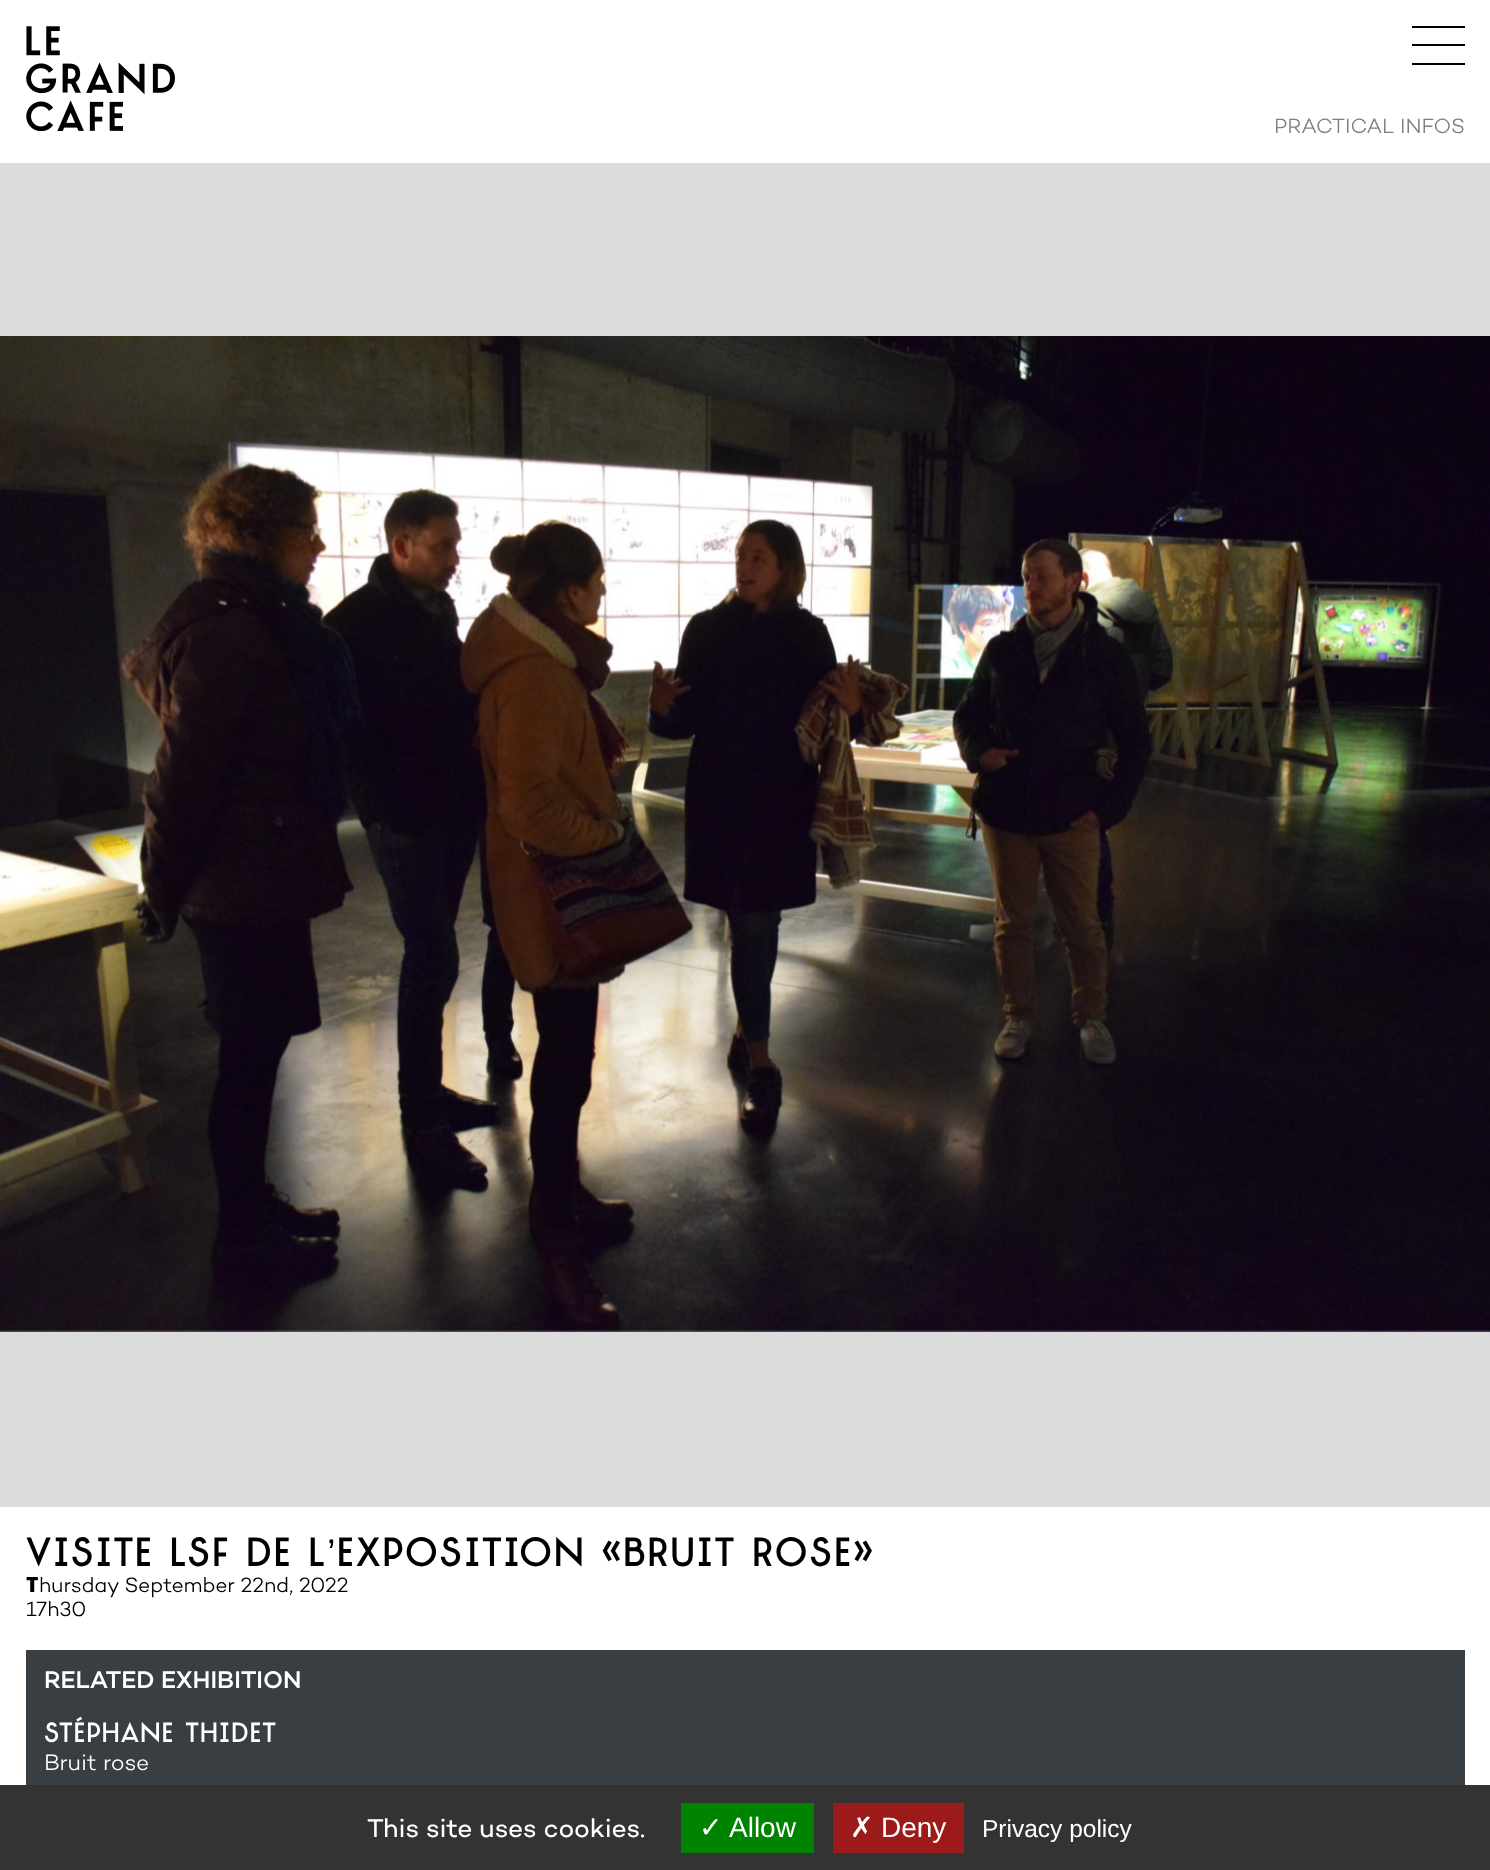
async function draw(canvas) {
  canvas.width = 1490
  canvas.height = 1870
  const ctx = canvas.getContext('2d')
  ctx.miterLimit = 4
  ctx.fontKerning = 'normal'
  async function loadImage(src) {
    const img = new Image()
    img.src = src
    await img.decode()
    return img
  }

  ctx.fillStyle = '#fff'
  ctx.fillRect(0, 0, 1490, 1870)
  ctx.drawImage(await loadImage('image0.png'), 26, 26, 149, 105)
  ctx.fillStyle = '#000'
  ctx.fillRect(1412, 26, 53, 2)
  ctx.fillRect(1412, 63, 53, 2)
  ctx.fillRect(1412, 44, 53, 2)
  ctx.font = '300 21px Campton'
  ctx.fillStyle = '#808080'
  ctx.fillText('PRACTICAL INFOS', 1274, 133)
  ctx.fillStyle = '#dcdcdc'
  ctx.fillRect(0, 163, 1490, 1344)
  ctx.drawImage(await loadImage('image1.png'), 0, 336, 1490, 996)
  ctx.letterSpacing = '1.9px'
  ctx.font = 'bold 38.5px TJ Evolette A'
  ctx.fillStyle = '#000'
  ctx.fillText('visite lsf de l', 26, 1566)
  ctx.font = '38.5px Liberation Sans'
  ctx.fillText('’', 327, 1566)
  ctx.font = 'bold 38.5px TJ Evolette A'
  ctx.fillText('exposition «bruit rose»', 337, 1566)
  ctx.letterSpacing = '0px'
  ctx.font = '900 21px Noto Sans'
  ctx.fillText('T', 26, 1592)
  ctx.font = '300 21px Campton'
  ctx.fillText('hursday September 22nd, 2022', 39, 1592)
  ctx.fillText('17h30', 26, 1616)
  ctx.fillStyle = '#383e42'
  ctx.fillRect(26, 1650, 1439, 135)
  ctx.font = '500 24.5px Campton'
  ctx.fillStyle = '#fff'
  ctx.fillText('RELATED EXHIBITION', 44, 1688)
  ctx.letterSpacing = '1.25px'
  ctx.font = 'bold 26.25px TJ Evolette A'
  ctx.fillText('stéphane thidet', 44, 1742)
  ctx.letterSpacing = '0px'
  ctx.font = '300 22.75px Campton'
  ctx.fillText('Bruit rose', 44, 1770)
  ctx.fillStyle = '#333'
  ctx.fillRect(0, 1785, 1490, 85)
  ctx.font = '26.25px Campton'
  ctx.fillStyle = '#fff'
  ctx.fillText('This site uses cookies.', 367, 1837)
  ctx.fillStyle = '#008300'
  ctx.fillRect(681, 1803, 133, 50)
  ctx.font = '28px DejaVu Sans'
  ctx.fillStyle = '#fff'
  ctx.fillText('✓', 699, 1837)
  ctx.font = '28px Liberation Sans'
  ctx.fillText('Allow', 729, 1837)
  ctx.fillStyle = '#9c1a1a'
  ctx.fillRect(833, 1803, 131, 50)
  ctx.font = '28px DejaVu Sans'
  ctx.fillStyle = '#fff'
  ctx.fillText('✗', 850, 1837)
  ctx.font = '28px Liberation Sans'
  ctx.fillText('Deny', 881, 1837)
  ctx.font = '24.5px Liberation Sans'
  ctx.fillText('Privacy policy', 982, 1837)
}

draw(document.querySelector('canvas'))
